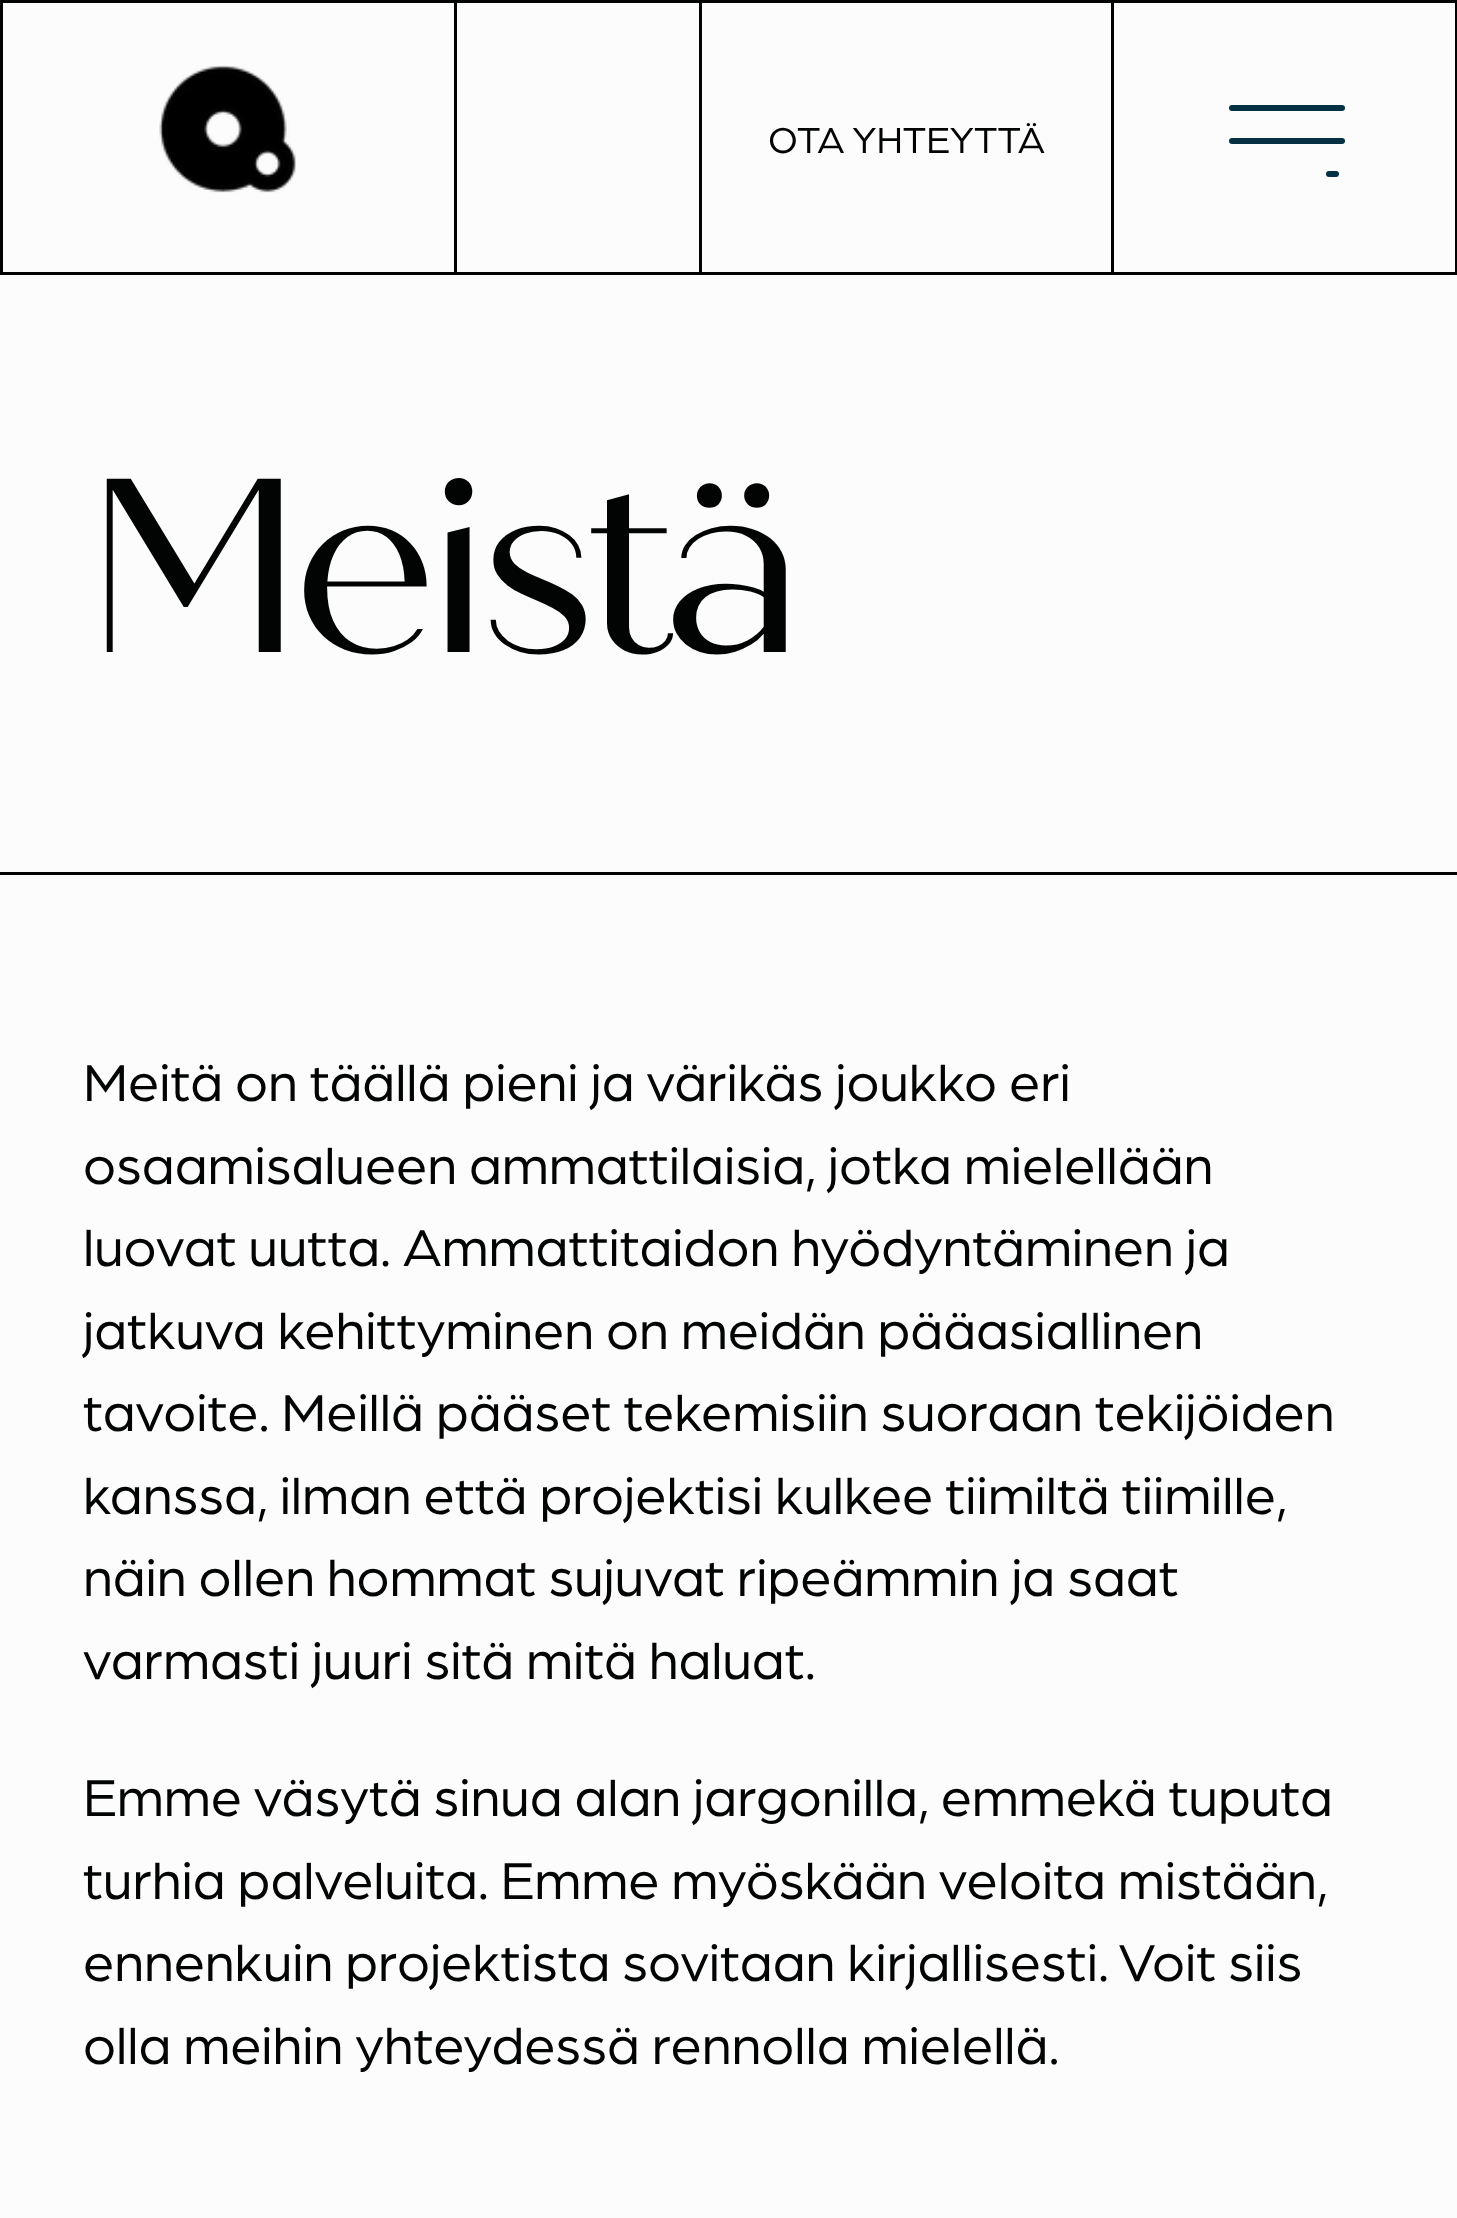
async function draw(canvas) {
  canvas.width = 1457
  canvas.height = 2218
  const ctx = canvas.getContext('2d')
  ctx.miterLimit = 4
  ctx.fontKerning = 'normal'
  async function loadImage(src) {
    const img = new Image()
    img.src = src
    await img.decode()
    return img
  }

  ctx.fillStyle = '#fcfcfc'
  ctx.fillRect(0, 0, 1457, 2218)
  ctx.strokeStyle = '#020403'
  ctx.lineWidth = 3
  ctx.strokeRect(1.5, 1.5, 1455, 272)
  ctx.fillStyle = '#020403'
  ctx.fillRect(454, 3, 3, 269)
  ctx.drawImage(await loadImage('image0.png'), 159, 65, 137, 128)
  ctx.fillRect(699, 3, 3, 269)
  ctx.font = '38.5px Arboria'
  ctx.fillText('OTA YHTEYTTÄ', 768, 153)
  ctx.fillRect(1111, 3, 3, 269)
  ctx.fillStyle = '#053142'
  ctx.beginPath()
  ctx.roundRect(1229, 105, 116, 6, 3)
  ctx.fill()
  ctx.beginPath()
  ctx.roundRect(1229, 138, 116, 6, 3)
  ctx.fill()
  ctx.beginPath()
  ctx.roundRect(1326, 171, 13, 6, 3)
  ctx.fill()
  ctx.fillStyle = '#020403'
  ctx.fillRect(0, 872, 1457, 3)
  ctx.letterSpacing = '-12.5px'
  ctx.font = '247.5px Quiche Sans'
  ctx.fillText('Meistä', 83, 652)
  ctx.letterSpacing = '0px'
  ctx.font = '55px Arboria'
  ctx.fillText('Meitä on täällä pieni ja värikäs joukko eri', 83, 1101)
  ctx.fillText('osaamisalueen ammattilaisia, jotka mielellään', 83, 1184)
  ctx.fillText('luovat uutta. Ammattitaidon hyödyntäminen ja', 83, 1266)
  ctx.fillText('jatkuva kehittyminen on meidän pääasiallinen', 83, 1349)
  ctx.fillText('tavoite. Meillä pääset tekemisiin suoraan tekijöiden', 83, 1431)
  ctx.fillText('kanssa, ilman että projektisi kulkee tiimiltä tiimille,', 83, 1514)
  ctx.fillText('näin ollen hommat sujuvat ripeämmin ja saat', 83, 1596)
  ctx.fillText('varmasti juuri sitä mitä haluat.', 83, 1679)
  ctx.fillText('Emme väsytä sinua alan jargonilla, emmekä tuputa', 83, 1816)
  ctx.fillText('turhia palveluita. Emme myöskään veloita mistään,', 83, 1899)
  ctx.fillText('ennenkuin projektista sovitaan kirjallisesti. Voit siis', 83, 1981)
  ctx.fillText('olla meihin yhteydessä rennolla mielellä.', 83, 2064)
}

draw(document.querySelector('canvas'))
